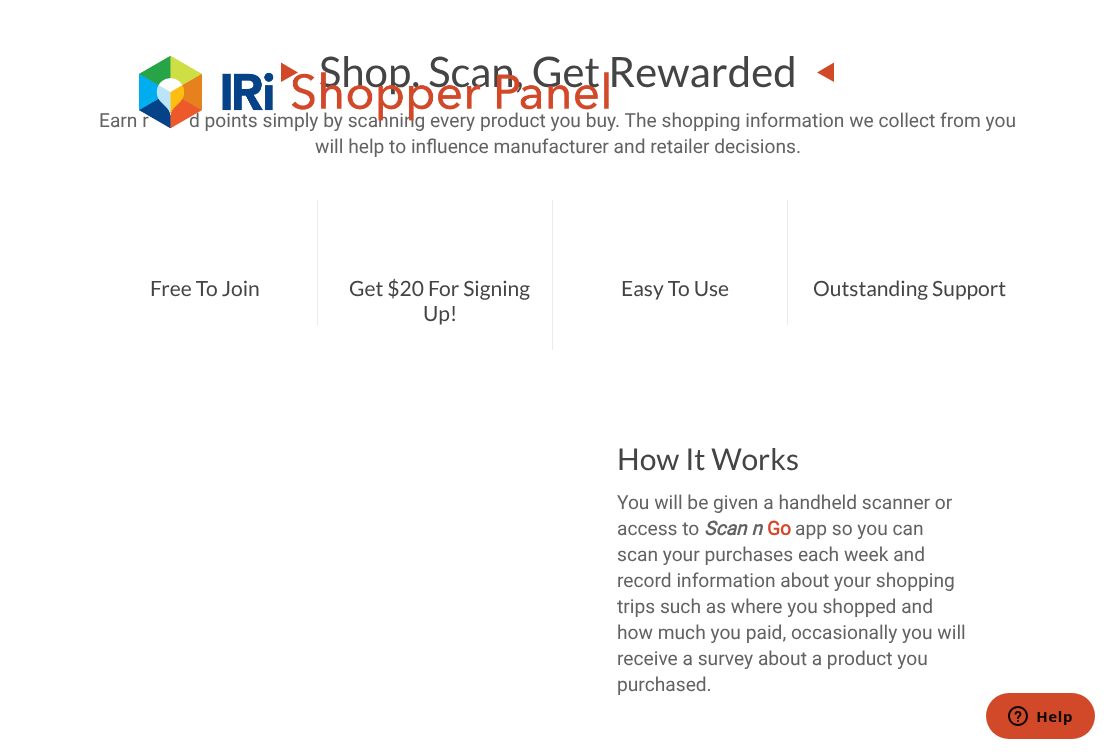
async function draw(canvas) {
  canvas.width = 1115
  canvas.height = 753
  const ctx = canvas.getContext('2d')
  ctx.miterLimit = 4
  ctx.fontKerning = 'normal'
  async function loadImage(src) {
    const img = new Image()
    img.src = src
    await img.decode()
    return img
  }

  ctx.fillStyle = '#fff'
  ctx.fillRect(0, 0, 1115, 753)
  ctx.fillStyle = '#d2492a'
  ctx.beginPath()
  ctx.moveTo(281, 62.5)
  ctx.lineTo(298, 72.5)
  ctx.lineTo(281, 82)
  ctx.closePath()
  ctx.fill()
  ctx.font = '42px Lato'
  ctx.fillStyle = '#444'
  ctx.fillText('Shop, Scan, Get Rewarded', 319, 87)
  ctx.font = '19.2px Roboto'
  ctx.fillStyle = '#626262'
  ctx.fillText('Earn r', 99, 127)
  ctx.fillText('d points simply by scanning every product you buy. The shopping information we collect from you', 189, 127)
  ctx.drawImage(await loadImage('image0.png'), 139, 55, 470, 74)
  ctx.fillStyle = '#d2492a'
  ctx.beginPath()
  ctx.moveTo(834, 62.5)
  ctx.lineTo(834, 82)
  ctx.lineTo(817, 72.5)
  ctx.closePath()
  ctx.fill()
  ctx.fillStyle = '#626262'
  ctx.fillText('will help to influence manufacturer and retailer decisions.', 315, 153)
  ctx.font = '21px Lato'
  ctx.fillStyle = '#444'
  ctx.fillText('Free To Join', 150, 296)
  ctx.fillStyle = '#ebebeb'
  ctx.fillRect(317, 200, 1, 125)
  ctx.fillStyle = '#444'
  ctx.fillText('Get $20 For Signing', 349, 296)
  ctx.fillText('Up!', 423, 321)
  ctx.fillStyle = '#ebebeb'
  ctx.fillRect(552, 200, 1, 150)
  ctx.fillStyle = '#444'
  ctx.fillText('Easy To Use', 621, 296)
  ctx.fillStyle = '#ebebeb'
  ctx.fillRect(787, 200, 1, 125)
  ctx.fillStyle = '#444'
  ctx.fillText('Outstanding Support', 813, 296)
  ctx.font = '30px Lato'
  ctx.fillText('How It Works', 617, 470)
  ctx.font = '19.2px Roboto'
  ctx.fillStyle = '#626262'
  ctx.fillText('You will be given a handheld scanner or', 617, 509)
  ctx.fillText('access to', 617, 535)
  ctx.font = 'italic bold 19.2px Roboto'
  ctx.fillText('Scan n', 704, 535)
  ctx.font = 'bold 19.2px Roboto'
  ctx.fillStyle = '#d2492a'
  ctx.fillText('Go', 767, 535)
  ctx.font = '19.2px Roboto'
  ctx.fillStyle = '#626262'
  ctx.fillText('app so you can', 795, 535)
  ctx.fillText('scan your purchases each week and', 617, 561)
  ctx.fillText('record information about your shopping', 617, 587)
  ctx.fillText('trips such as where you shopped and', 617, 613)
  ctx.fillText('how much you paid, occasionally you will', 617, 639)
  ctx.fillText('receive a survey about a product you', 617, 665)
  ctx.fillText('purchased.', 617, 691)
  ctx.drawImage(await loadImage('image1.png'), 986, 693, 109, 46)
}

draw(document.querySelector('canvas'))
